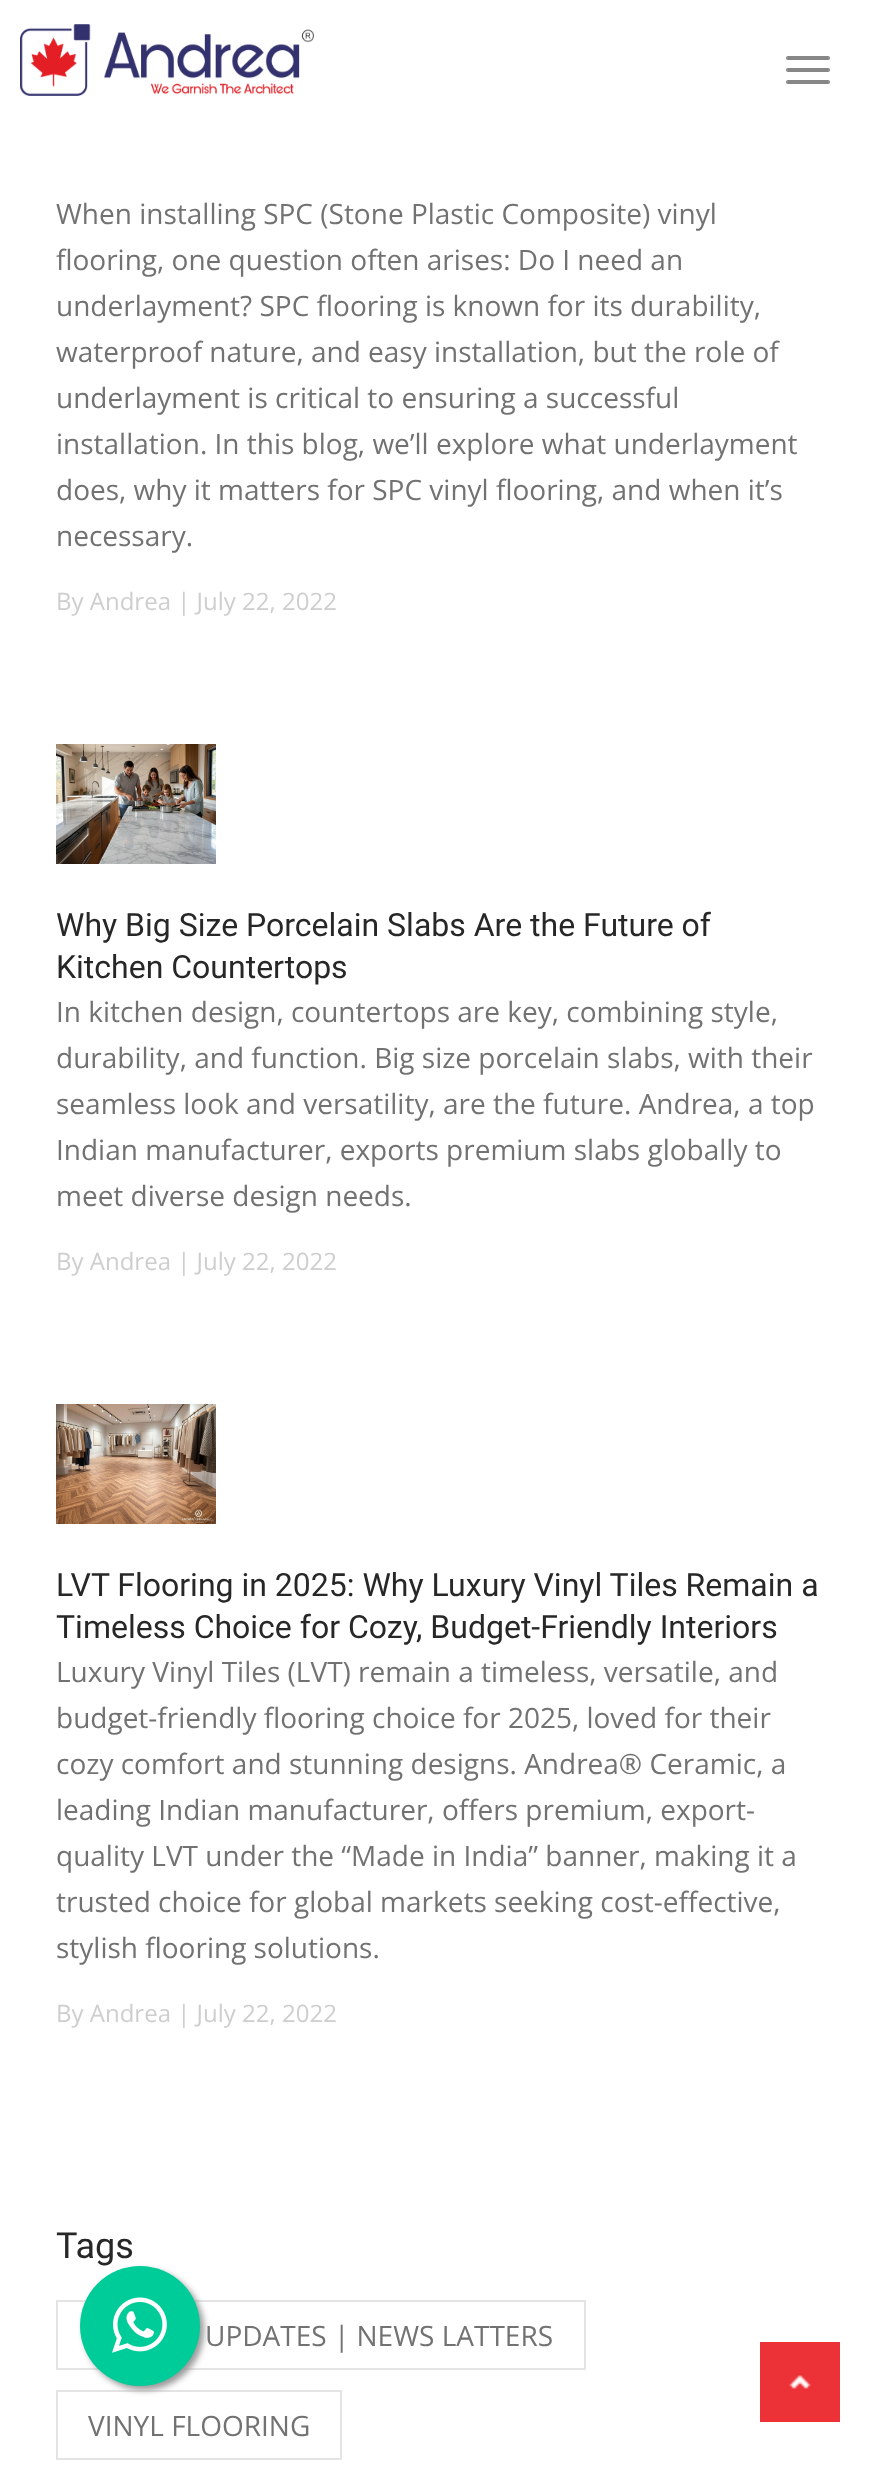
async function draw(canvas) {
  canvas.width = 880
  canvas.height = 2465
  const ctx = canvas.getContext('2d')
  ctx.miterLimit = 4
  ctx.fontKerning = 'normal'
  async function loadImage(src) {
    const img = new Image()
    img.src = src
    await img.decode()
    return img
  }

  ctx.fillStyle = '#fff'
  ctx.fillRect(0, 0, 880, 2465)
  ctx.drawImage(await loadImage('image0.png'), 20, 24, 294, 72)
  ctx.fillStyle = '#888'
  ctx.beginPath()
  ctx.roundRect(786, 56, 44, 4, 2)
  ctx.fill()
  ctx.beginPath()
  ctx.roundRect(786, 68, 44, 4, 2)
  ctx.fill()
  ctx.beginPath()
  ctx.roundRect(786, 80, 44, 4, 2)
  ctx.fill()
  ctx.font = '28px Open Sans'
  ctx.fillStyle = '#727272'
  ctx.fillText('When installing SPC (Stone Plastic Composite) vinyl', 56, 224)
  ctx.fillText('flooring, one question often arises: Do I need an', 56, 270)
  ctx.fillText('underlayment? SPC flooring is known for its durability,', 56, 316)
  ctx.fillText('waterproof nature, and easy installation, but the role of', 56, 362)
  ctx.fillText('underlayment is critical to ensuring a successful', 56, 408)
  ctx.fillText('installation. In this blog, we’ll explore what underlayment', 56, 454)
  ctx.fillText('does, why it matters for SPC vinyl flooring, and when it’s', 56, 500)
  ctx.fillText('necessary.', 56, 546)
  ctx.font = '24px Open Sans'
  ctx.fillStyle = '#cecece'
  ctx.fillText('By Andrea | July 22, 2022', 56, 610)
  ctx.drawImage(await loadImage('image1.png'), 56, 744, 160, 120)
  ctx.font = '32px Roboto'
  ctx.fillStyle = '#272727'
  ctx.fillText('Why Big Size Porcelain Slabs Are the Future of', 56, 936)
  ctx.fillText('Kitchen Countertops', 56, 978)
  ctx.font = '28px Open Sans'
  ctx.fillStyle = '#727272'
  ctx.fillText('In kitchen design, countertops are key, combining style,', 56, 1022)
  ctx.fillText('durability, and function. Big size porcelain slabs, with their', 56, 1068)
  ctx.fillText('seamless look and versatility, are the future. Andrea, a top', 56, 1114)
  ctx.fillText('Indian manufacturer, exports premium slabs globally to', 56, 1160)
  ctx.fillText('meet diverse design needs.', 56, 1206)
  ctx.font = '24px Open Sans'
  ctx.fillStyle = '#cecece'
  ctx.fillText('By Andrea | July 22, 2022', 56, 1270)
  ctx.drawImage(await loadImage('image2.png'), 56, 1404, 160, 120)
  ctx.font = '32px Roboto'
  ctx.fillStyle = '#272727'
  ctx.fillText('LVT Flooring in 2025: Why Luxury Vinyl Tiles Remain a', 56, 1596)
  ctx.fillText('Timeless Choice for Cozy, Budget-Friendly Interiors', 56, 1638)
  ctx.font = '28px Open Sans'
  ctx.fillStyle = '#727272'
  ctx.fillText('Luxury Vinyl Tiles (LVT) remain a timeless, versatile, and', 56, 1682)
  ctx.fillText('budget-friendly flooring choice for 2025, loved for their', 56, 1728)
  ctx.fillText('cozy comfort and stunning designs. Andrea® Ceramic, a', 56, 1774)
  ctx.fillText('leading Indian manufacturer, offers premium, export-', 56, 1820)
  ctx.fillText('quality LVT under the “Made in India” banner, making it a', 56, 1866)
  ctx.fillText('trusted choice for global markets seeking cost-effective,', 56, 1912)
  ctx.fillText('stylish flooring solutions.', 56, 1958)
  ctx.font = '24px Open Sans'
  ctx.fillStyle = '#cecece'
  ctx.fillText('By Andrea | July 22, 2022', 56, 2022)
  ctx.font = '36px Roboto'
  ctx.fillStyle = '#272727'
  ctx.fillText('Tags', 56, 2258)
  ctx.strokeStyle = '#e4e4e4'
  ctx.lineWidth = 2
  ctx.strokeRect(57, 2301, 528, 68)
  ctx.font = '28px Open Sans'
  ctx.fillStyle = '#727272'
  ctx.fillText('UPDATES | NEWS LATTERS', 205, 2346)
  ctx.strokeRect(57, 2391, 284, 68)
  ctx.fillText('VINYL FLOORING', 88, 2436)
  ctx.fillStyle = '#999'
  ctx.filter = 'blur(3px)'
  ctx.beginPath()
  ctx.roundRect(84, 2270, 120, 120, 60)
  ctx.fill()
  ctx.filter = 'none'
  ctx.fillStyle = '#0c9'
  ctx.beginPath()
  ctx.arc(140, 2326, 60, 0, 2 * Math.PI)
  ctx.fill()
  ctx.drawImage(await loadImage('image3.png'), 112, 2297, 55, 56)
  ctx.fillStyle = '#ed3237'
  ctx.fillRect(760, 2342, 80, 80)
  ctx.drawImage(await loadImage('image4.png'), 789, 2375, 22, 14)
}

draw(document.querySelector('canvas'))
